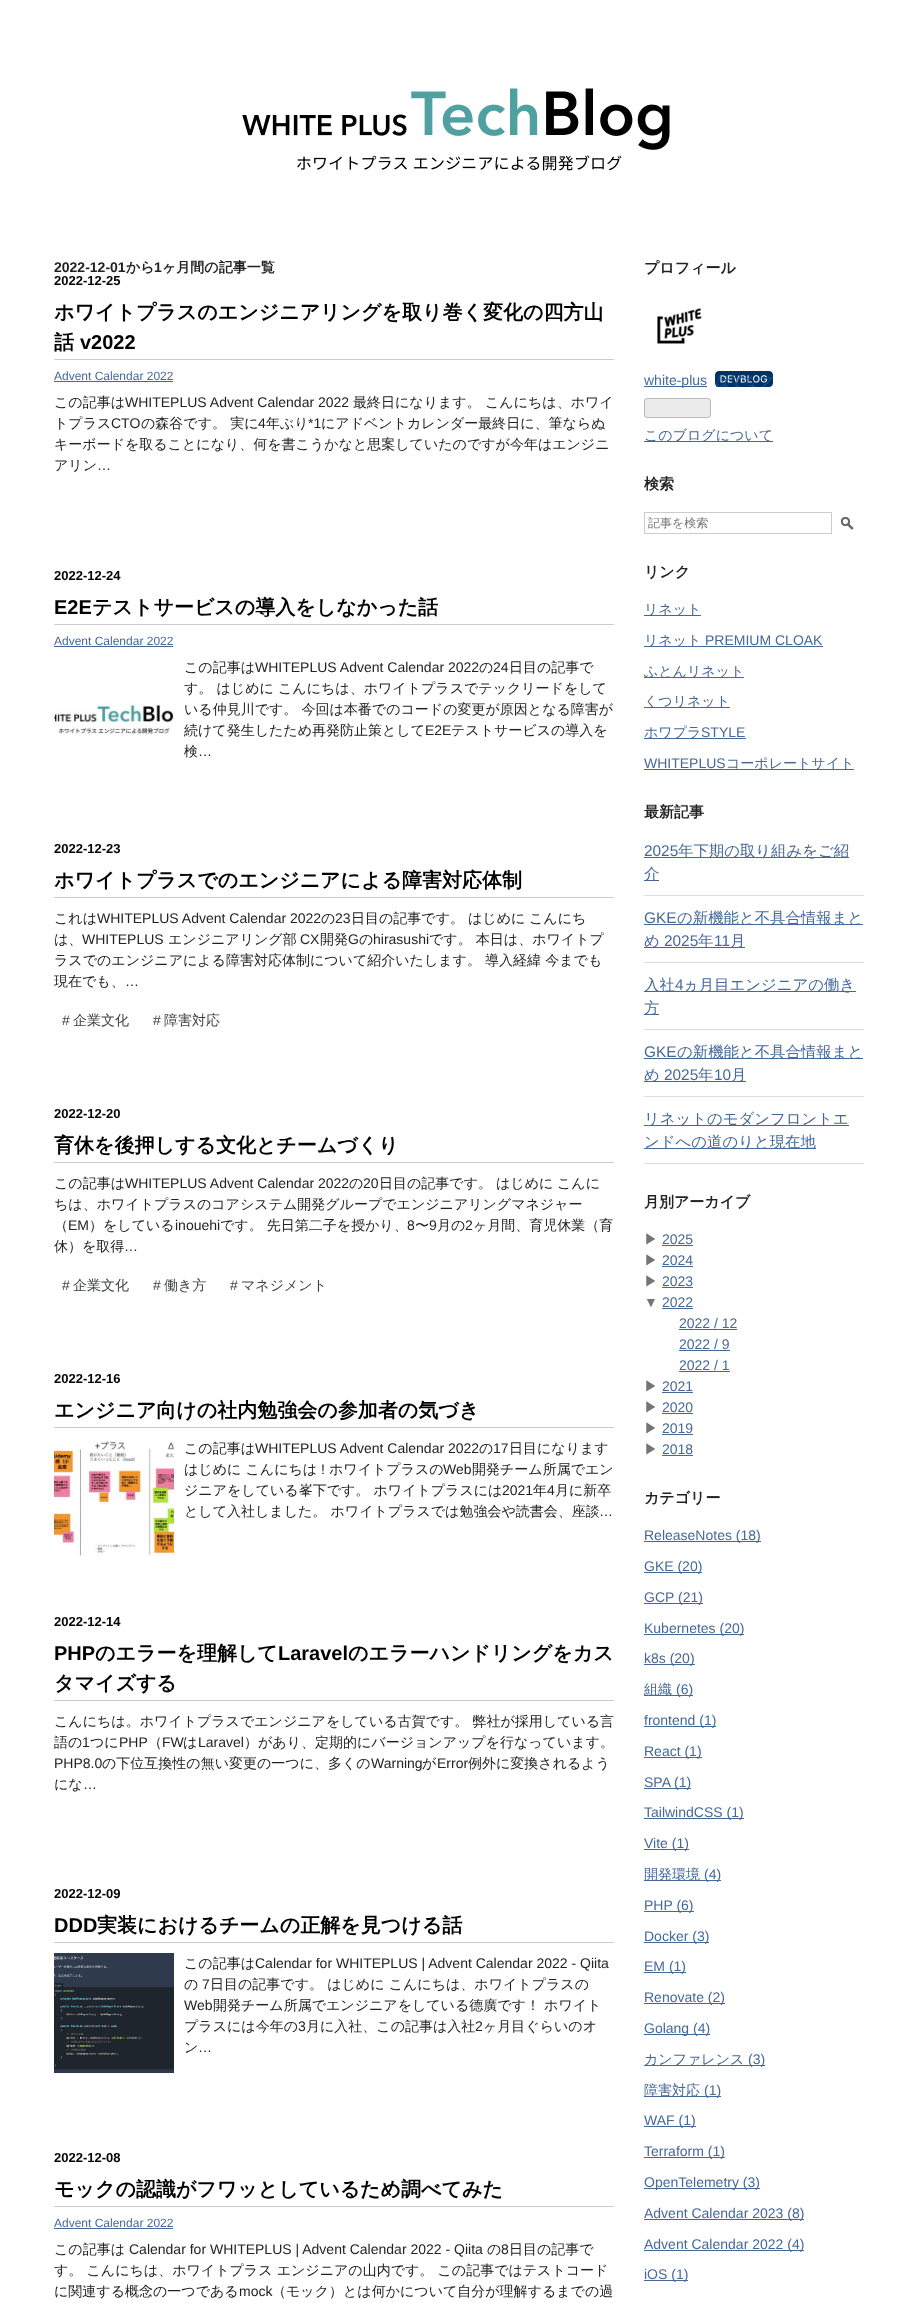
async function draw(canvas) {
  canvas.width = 918
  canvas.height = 2303
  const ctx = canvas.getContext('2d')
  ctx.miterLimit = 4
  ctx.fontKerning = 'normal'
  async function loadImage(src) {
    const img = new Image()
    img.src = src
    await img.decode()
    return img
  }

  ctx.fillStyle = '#fff'
  ctx.fillRect(0, 0, 918, 2303)
  ctx.drawImage(await loadImage('image0.png'), 242, 88, 428, 83)
  ctx.font = 'bold 14px Liberation Sans'
  ctx.fillStyle = '#222'
  ctx.fillText('2022-12-01', 54, 272)
  ctx.font = 'bold 14px WenQuanYi Zen Hei'
  ctx.fillText('から', 126, 272)
  ctx.font = 'bold 14px Liberation Sans'
  ctx.fillText('1', 154, 272)
  ctx.font = 'bold 14px WenQuanYi Zen Hei'
  ctx.fillText('ヶ月間の記事一覧', 162, 272)
  ctx.font = 'bold 13px Liberation Sans'
  ctx.fillStyle = '#000'
  ctx.fillText('2022-12-25', 54, 285)
  ctx.fillStyle = '#ccc'
  ctx.fillRect(54, 359, 560, 1)
  ctx.font = 'bold 20px WenQuanYi Zen Hei'
  ctx.fillStyle = '#000'
  ctx.fillText('ホワイトプラスのエンジニアリングを取り巻く変化の四方山', 54, 319)
  ctx.fillText('話', 54, 349)
  ctx.font = 'bold 20px Liberation Sans'
  ctx.fillText('v2022', 80, 349)
  ctx.font = '12px Liberation Sans'
  ctx.fillStyle = '#456898'
  ctx.fillText('Advent Calendar 2022', 54, 380)
  ctx.fillRect(54, 381, 119, 1)
  ctx.font = '500 14px WenQuanYi Zen Hei'
  ctx.fillStyle = '#222'
  ctx.fillText('この記事は', 54, 407)
  ctx.font = '14px Liberation Sans'
  ctx.fillText('WHITEPLUS Advent Calendar 2022', 125, 407)
  ctx.font = '500 14px WenQuanYi Zen Hei'
  ctx.fillText('最終日になります。', 353, 407)
  ctx.fillText('こんにちは、ホワイ', 485, 407)
  ctx.fillText('トプラス', 54, 428)
  ctx.font = '14px Liberation Sans'
  ctx.fillText('CTO', 111, 428)
  ctx.font = '500 14px WenQuanYi Zen Hei'
  ctx.fillText('の森谷です。 実に', 141, 428)
  ctx.font = '14px Liberation Sans'
  ctx.fillText('4', 258, 428)
  ctx.font = '500 14px WenQuanYi Zen Hei'
  ctx.fillText('年ぶり', 266, 428)
  ctx.font = '14px Liberation Sans'
  ctx.fillText('*1', 308, 428)
  ctx.font = '500 14px WenQuanYi Zen Hei'
  ctx.fillText('にアドベントカレンダー最終日に、筆ならぬ', 321, 428)
  ctx.fillText('キーボードを取ることになり、何を書こうかなと思案していたのですが今年はエンジニ', 54, 449)
  ctx.fillText('アリン', 54, 470)
  ctx.font = '14px Liberation Sans'
  ctx.fillText('…', 97, 470)
  ctx.font = 'bold 13px Liberation Sans'
  ctx.fillStyle = '#000'
  ctx.fillText('2022-12-24', 54, 580)
  ctx.fillStyle = '#ccc'
  ctx.fillRect(54, 624, 560, 1)
  ctx.font = 'bold 20px Liberation Sans'
  ctx.fillStyle = '#000'
  ctx.fillText('E2E', 54, 614)
  ctx.font = 'bold 20px WenQuanYi Zen Hei'
  ctx.fillText('テストサービスの導入をしなかった話', 92, 614)
  ctx.font = '12px Liberation Sans'
  ctx.fillStyle = '#456898'
  ctx.fillText('Advent Calendar 2022', 54, 645)
  ctx.fillRect(54, 646, 119, 1)
  ctx.drawImage(await loadImage('image1.png'), 54, 703, 120, 31)
  ctx.font = '500 14px WenQuanYi Zen Hei'
  ctx.fillStyle = '#222'
  ctx.fillText('この記事は', 184, 672)
  ctx.font = '14px Liberation Sans'
  ctx.fillText('WHITEPLUS Advent Calendar 2022', 255, 672)
  ctx.font = '500 14px WenQuanYi Zen Hei'
  ctx.fillText('の', 479, 672)
  ctx.font = '14px Liberation Sans'
  ctx.fillText('24', 493, 672)
  ctx.font = '500 14px WenQuanYi Zen Hei'
  ctx.fillText('日目の記事で', 509, 672)
  ctx.fillText('す。 はじめに こんにちは、ホワイトプラスでテックリードをして', 184, 693)
  ctx.fillText('いる仲見川です。 今回は本番でのコードの変更が原因となる障害が', 184, 714)
  ctx.fillText('続けて発生したため再発防止策として', 184, 735)
  ctx.font = '14px Liberation Sans'
  ctx.fillText('E2E', 425, 735)
  ctx.font = '500 14px WenQuanYi Zen Hei'
  ctx.fillText('テストサービスの導入を', 451, 735)
  ctx.fillText('検', 184, 756)
  ctx.font = '14px Liberation Sans'
  ctx.fillText('…', 198, 756)
  ctx.font = 'bold 13px Liberation Sans'
  ctx.fillStyle = '#000'
  ctx.fillText('2022-12-23', 54, 853)
  ctx.fillStyle = '#ccc'
  ctx.fillRect(54, 897, 560, 1)
  ctx.font = 'bold 20px WenQuanYi Zen Hei'
  ctx.fillStyle = '#000'
  ctx.fillText('ホワイトプラスでのエンジニアによる障害対応体制', 54, 887)
  ctx.font = '500 14px WenQuanYi Zen Hei'
  ctx.fillStyle = '#222'
  ctx.fillText('これは', 54, 923)
  ctx.font = '14px Liberation Sans'
  ctx.fillText('WHITEPLUS Advent Calendar 2022', 97, 923)
  ctx.font = '500 14px WenQuanYi Zen Hei'
  ctx.fillText('の', 321, 923)
  ctx.font = '14px Liberation Sans'
  ctx.fillText('23', 335, 923)
  ctx.font = '500 14px WenQuanYi Zen Hei'
  ctx.fillText('日目の記事です。', 351, 923)
  ctx.fillText('はじめに', 468, 923)
  ctx.fillText('こんにち', 529, 923)
  ctx.fillText('は、', 54, 944)
  ctx.font = '14px Liberation Sans'
  ctx.fillText('WHITEPLUS', 82, 944)
  ctx.font = '500 14px WenQuanYi Zen Hei'
  ctx.fillText('エンジニアリング部', 168, 944)
  ctx.font = '14px Liberation Sans'
  ctx.fillText('CX', 300, 944)
  ctx.font = '500 14px WenQuanYi Zen Hei'
  ctx.fillText('開発', 320, 944)
  ctx.font = '14px Liberation Sans'
  ctx.fillText('G', 348, 944)
  ctx.font = '500 14px WenQuanYi Zen Hei'
  ctx.fillText('の', 359, 944)
  ctx.font = '14px Liberation Sans'
  ctx.fillText('hirasushi', 373, 944)
  ctx.font = '500 14px WenQuanYi Zen Hei'
  ctx.fillText('です。 本日は、ホワイトプ', 429, 944)
  ctx.fillText('ラスでのエンジニアによる障害対応体制について紹介いたします。 導入経緯 今までも', 54, 965)
  ctx.fillText('現在でも、', 54, 986)
  ctx.font = '14px Liberation Sans'
  ctx.fillText('…', 125, 986)
  ctx.fillStyle = '#3d4245'
  ctx.fillText('#', 62, 1025)
  ctx.font = '500 14px WenQuanYi Zen Hei'
  ctx.fillText('企業文化', 73, 1025)
  ctx.font = '14px Liberation Sans'
  ctx.fillText('#', 153, 1025)
  ctx.font = '500 14px WenQuanYi Zen Hei'
  ctx.fillText('障害対応', 164, 1025)
  ctx.font = 'bold 13px Liberation Sans'
  ctx.fillStyle = '#000'
  ctx.fillText('2022-12-20', 54, 1118)
  ctx.fillStyle = '#ccc'
  ctx.fillRect(54, 1162, 560, 1)
  ctx.font = 'bold 20px WenQuanYi Zen Hei'
  ctx.fillStyle = '#000'
  ctx.fillText('育休を後押しする文化とチームづくり', 54, 1152)
  ctx.font = '500 14px WenQuanYi Zen Hei'
  ctx.fillStyle = '#222'
  ctx.fillText('この記事は', 54, 1188)
  ctx.font = '14px Liberation Sans'
  ctx.fillText('WHITEPLUS Advent Calendar 2022', 125, 1188)
  ctx.font = '500 14px WenQuanYi Zen Hei'
  ctx.fillText('の', 349, 1188)
  ctx.font = '14px Liberation Sans'
  ctx.fillText('20', 363, 1188)
  ctx.font = '500 14px WenQuanYi Zen Hei'
  ctx.fillText('日目の記事です。', 379, 1188)
  ctx.fillText('はじめに', 496, 1188)
  ctx.fillText('こんに', 557, 1188)
  ctx.fillText('ちは、ホワイトプラスのコアシステム開発グループでエンジニアリングマネジャー', 54, 1209)
  ctx.fillText('（', 54, 1230)
  ctx.font = '14px Liberation Sans'
  ctx.fillText('EM', 68, 1230)
  ctx.font = '500 14px WenQuanYi Zen Hei'
  ctx.fillText('）をしている', 89, 1230)
  ctx.font = '14px Liberation Sans'
  ctx.fillText('inouehi', 175, 1230)
  ctx.font = '500 14px WenQuanYi Zen Hei'
  ctx.fillText('です。 先日第二子を授かり、', 220, 1230)
  ctx.font = '14px Liberation Sans'
  ctx.fillText('8', 407, 1230)
  ctx.font = '500 14px WenQuanYi Zen Hei'
  ctx.fillText('〜', 415, 1230)
  ctx.font = '14px Liberation Sans'
  ctx.fillText('9', 429, 1230)
  ctx.font = '500 14px WenQuanYi Zen Hei'
  ctx.fillText('月の', 437, 1230)
  ctx.font = '14px Liberation Sans'
  ctx.fillText('2', 465, 1230)
  ctx.font = '500 14px WenQuanYi Zen Hei'
  ctx.fillText('ヶ月間、育児休業（育', 473, 1230)
  ctx.fillText('休）を取得', 54, 1251)
  ctx.font = '14px Liberation Sans'
  ctx.fillText('…', 124, 1251)
  ctx.fillStyle = '#3d4245'
  ctx.fillText('#', 62, 1290)
  ctx.font = '500 14px WenQuanYi Zen Hei'
  ctx.fillText('企業文化', 73, 1290)
  ctx.font = '14px Liberation Sans'
  ctx.fillText('#', 153, 1290)
  ctx.font = '500 14px WenQuanYi Zen Hei'
  ctx.fillText('働き方', 164, 1290)
  ctx.font = '14px Liberation Sans'
  ctx.fillText('#', 230, 1290)
  ctx.font = '500 14px WenQuanYi Zen Hei'
  ctx.fillText('マネジメント', 241, 1290)
  ctx.font = 'bold 13px Liberation Sans'
  ctx.fillStyle = '#000'
  ctx.fillText('2022-12-16', 54, 1383)
  ctx.fillStyle = '#ccc'
  ctx.fillRect(54, 1427, 560, 1)
  ctx.font = 'bold 20px WenQuanYi Zen Hei'
  ctx.fillStyle = '#000'
  ctx.fillText('エンジニア向けの社内勉強会の参加者の気づき', 54, 1417)
  ctx.drawImage(await loadImage('image2.png'), 54, 1441, 120, 115)
  ctx.font = '500 14px WenQuanYi Zen Hei'
  ctx.fillStyle = '#222'
  ctx.fillText('この記事は', 184, 1453)
  ctx.font = '14px Liberation Sans'
  ctx.fillText('WHITEPLUS Advent Calendar 2022', 255, 1453)
  ctx.font = '500 14px WenQuanYi Zen Hei'
  ctx.fillText('の', 479, 1453)
  ctx.font = '14px Liberation Sans'
  ctx.fillText('17', 493, 1453)
  ctx.font = '500 14px WenQuanYi Zen Hei'
  ctx.fillText('日目になります', 509, 1453)
  ctx.fillText('はじめに こんにちは', 184, 1474)
  ctx.font = '14px Liberation Sans'
  ctx.fillText('!', 321, 1474)
  ctx.font = '500 14px WenQuanYi Zen Hei'
  ctx.fillText('ホワイトプラスの', 329, 1474)
  ctx.font = '14px Liberation Sans'
  ctx.fillText('Web', 443, 1474)
  ctx.font = '500 14px WenQuanYi Zen Hei'
  ctx.fillText('開発チーム所属でエン', 472, 1474)
  ctx.fillText('ジニアをしている峯下です。 ホワイトプラスには', 184, 1495)
  ctx.font = '14px Liberation Sans'
  ctx.fillText('2021', 502, 1495)
  ctx.font = '500 14px WenQuanYi Zen Hei'
  ctx.fillText('年', 533, 1495)
  ctx.font = '14px Liberation Sans'
  ctx.fillText('4', 547, 1495)
  ctx.font = '500 14px WenQuanYi Zen Hei'
  ctx.fillText('月に新卒', 555, 1495)
  ctx.fillText('として入社しました。 ホワイトプラスでは勉強会や読書会、座談', 184, 1516)
  ctx.font = '14px Liberation Sans'
  ctx.fillText('…', 599, 1516)
  ctx.font = 'bold 13px Liberation Sans'
  ctx.fillStyle = '#000'
  ctx.fillText('2022-12-14', 54, 1626)
  ctx.fillStyle = '#ccc'
  ctx.fillRect(54, 1700, 560, 1)
  ctx.font = 'bold 20px Liberation Sans'
  ctx.fillStyle = '#000'
  ctx.fillText('PHP', 54, 1660)
  ctx.font = 'bold 20px WenQuanYi Zen Hei'
  ctx.fillText('のエラーを理解して', 95, 1660)
  ctx.font = 'bold 20px Liberation Sans'
  ctx.fillText('Laravel', 278, 1660)
  ctx.font = 'bold 20px WenQuanYi Zen Hei'
  ctx.fillText('のエラーハンドリングをカス', 348, 1660)
  ctx.fillText('タマイズする', 54, 1690)
  ctx.font = '500 14px WenQuanYi Zen Hei'
  ctx.fillStyle = '#222'
  ctx.fillText('こんにちは。ホワイトプラスでエンジニアをしている古賀です。 弊社が採用している言', 54, 1726)
  ctx.fillText('語の', 54, 1747)
  ctx.font = '14px Liberation Sans'
  ctx.fillText('1', 82, 1747)
  ctx.font = '500 14px WenQuanYi Zen Hei'
  ctx.fillText('つに', 90, 1747)
  ctx.font = '14px Liberation Sans'
  ctx.fillText('PHP', 119, 1747)
  ctx.font = '500 14px WenQuanYi Zen Hei'
  ctx.fillText('（', 148, 1747)
  ctx.font = '14px Liberation Sans'
  ctx.fillText('FW', 162, 1747)
  ctx.font = '500 14px WenQuanYi Zen Hei'
  ctx.fillText('は', 183, 1747)
  ctx.font = '14px Liberation Sans'
  ctx.fillText('Laravel', 198, 1747)
  ctx.font = '500 14px WenQuanYi Zen Hei'
  ctx.fillText('）があり、定期的にバージョンアップを行なっています。', 244, 1747)
  ctx.font = '14px Liberation Sans'
  ctx.fillText('PHP8.0', 54, 1768)
  ctx.font = '500 14px WenQuanYi Zen Hei'
  ctx.fillText('の下位互換性の無い変更の一つに、多くの', 102, 1768)
  ctx.font = '14px Liberation Sans'
  ctx.fillText('Warning', 371, 1768)
  ctx.font = '500 14px WenQuanYi Zen Hei'
  ctx.fillText('が', 422, 1768)
  ctx.font = '14px Liberation Sans'
  ctx.fillText('Error', 437, 1768)
  ctx.font = '500 14px WenQuanYi Zen Hei'
  ctx.fillText('例外に変換されるよう', 468, 1768)
  ctx.fillText('にな', 54, 1789)
  ctx.font = '14px Liberation Sans'
  ctx.fillText('…', 83, 1789)
  ctx.font = 'bold 13px Liberation Sans'
  ctx.fillStyle = '#000'
  ctx.fillText('2022-12-09', 54, 1898)
  ctx.fillStyle = '#ccc'
  ctx.fillRect(54, 1942, 560, 1)
  ctx.font = 'bold 20px Liberation Sans'
  ctx.fillStyle = '#000'
  ctx.fillText('DDD', 54, 1932)
  ctx.font = 'bold 20px WenQuanYi Zen Hei'
  ctx.fillText('実装におけるチームの正解を見つける話', 97, 1932)
  ctx.drawImage(await loadImage('image3.png'), 54, 1953, 120, 120)
  ctx.font = '500 14px WenQuanYi Zen Hei'
  ctx.fillStyle = '#222'
  ctx.fillText('この記事は', 184, 1968)
  ctx.font = '14px Liberation Sans'
  ctx.fillText('Calendar for WHITEPLUS | Advent Calendar 2022 - Qiita', 255, 1968)
  ctx.font = '500 14px WenQuanYi Zen Hei'
  ctx.fillText('の', 184, 1989)
  ctx.font = '14px Liberation Sans'
  ctx.fillText('7', 202, 1989)
  ctx.font = '500 14px WenQuanYi Zen Hei'
  ctx.fillText('日目の記事です。 はじめに こんにちは、ホワイトプラスの', 210, 1989)
  ctx.font = '14px Liberation Sans'
  ctx.fillText('Web', 184, 2010)
  ctx.font = '500 14px WenQuanYi Zen Hei'
  ctx.fillText('開発チーム所属でエンジニアをしている德廣です！ ホワイト', 213, 2010)
  ctx.fillText('プラスには今年の', 184, 2031)
  ctx.font = '14px Liberation Sans'
  ctx.fillText('3', 298, 2031)
  ctx.font = '500 14px WenQuanYi Zen Hei'
  ctx.fillText('月に入社、この記事は入社', 306, 2031)
  ctx.font = '14px Liberation Sans'
  ctx.fillText('2', 475, 2031)
  ctx.font = '500 14px WenQuanYi Zen Hei'
  ctx.fillText('ヶ月目ぐらいのオ', 483, 2031)
  ctx.fillText('ン', 184, 2052)
  ctx.font = '14px Liberation Sans'
  ctx.fillText('…', 198, 2052)
  ctx.font = 'bold 13px Liberation Sans'
  ctx.fillStyle = '#000'
  ctx.fillText('2022-12-08', 54, 2162)
  ctx.fillStyle = '#ccc'
  ctx.fillRect(54, 2206, 560, 1)
  ctx.font = 'bold 20px WenQuanYi Zen Hei'
  ctx.fillStyle = '#000'
  ctx.fillText('モックの認識がフワッとしているため調べてみた', 54, 2196)
  ctx.font = '12px Liberation Sans'
  ctx.fillStyle = '#456898'
  ctx.fillText('Advent Calendar 2022', 54, 2227)
  ctx.fillRect(54, 2228, 119, 1)
  ctx.font = '500 14px WenQuanYi Zen Hei'
  ctx.fillStyle = '#222'
  ctx.fillText('この記事は', 54, 2254)
  ctx.font = '14px Liberation Sans'
  ctx.fillText('Calendar for WHITEPLUS | Advent Calendar 2022 - Qiita', 129, 2254)
  ctx.font = '500 14px WenQuanYi Zen Hei'
  ctx.fillText('の', 487, 2254)
  ctx.font = '14px Liberation Sans'
  ctx.fillText('8', 501, 2254)
  ctx.font = '500 14px WenQuanYi Zen Hei'
  ctx.fillText('日目の記事で', 509, 2254)
  ctx.fillText('す。 こんにちは、ホワイトプラス エンジニアの山内です。 この記事ではテストコード', 54, 2275)
  ctx.fillText('に関連する概念の一つである', 54, 2296)
  ctx.font = '14px Liberation Sans'
  ctx.fillText('mock', 239, 2296)
  ctx.font = '500 14px WenQuanYi Zen Hei'
  ctx.fillText('（モック）とは何かについて自分が理解するまでの過', 272, 2296)
  ctx.font = 'bold 15px WenQuanYi Zen Hei'
  ctx.fillText('プロフィール', 644, 273)
  ctx.drawImage(await loadImage('image4.png'), 657, 308, 45, 36)
  ctx.fillStyle = '#456898'
  ctx.fillRect(644, 386, 63, 1)
  ctx.font = '14px Liberation Sans'
  ctx.fillText('white-plus', 644, 385)
  ctx.drawImage(await loadImage('image5.png'), 715, 371, 58, 16)
  ctx.save()
  ctx.beginPath()
  ctx.rect(715, 371, 58, 16)
  ctx.clip()
  ctx.font = 'italic 500 14px WenQuanYi Zen Hei'
  ctx.fillStyle = '#24507d'
  ctx.fillText('はてなブ', 715, 386)
  ctx.restore()
  ctx.fillStyle = '#ebebeb'
  ctx.beginPath()
  ctx.roundRect(644.5, 398.5, 66, 19, 2.5)
  ctx.fill()
  ctx.strokeStyle = '#bbb'
  ctx.stroke()
  ctx.fillStyle = '#456898'
  ctx.fillRect(644, 441, 129, 1)
  ctx.font = '500 14px WenQuanYi Zen Hei'
  ctx.fillText('このブログについて', 644, 440)
  ctx.font = 'bold 15px WenQuanYi Zen Hei'
  ctx.fillStyle = '#222'
  ctx.fillText('検索', 644, 489)
  ctx.strokeStyle = '#ccc'
  ctx.strokeRect(644.5, 512.5, 187, 21)
  ctx.font = '500 12px WenQuanYi Zen Hei'
  ctx.fillStyle = '#757575'
  ctx.fillText('記事を検索', 648, 527)
  ctx.drawImage(await loadImage('image6.png'), 841, 517, 13, 13)
  ctx.font = 'bold 15px WenQuanYi Zen Hei'
  ctx.fillStyle = '#222'
  ctx.fillText('リンク', 644, 577)
  ctx.fillStyle = '#456898'
  ctx.fillRect(644, 615, 57, 1)
  ctx.font = '500 14px WenQuanYi Zen Hei'
  ctx.fillText('リネット', 644, 614)
  ctx.fillRect(644, 646, 179, 1)
  ctx.fillText('リネット', 644, 645)
  ctx.font = '14px Liberation Sans'
  ctx.fillText('PREMIUM CLOAK', 705, 645)
  ctx.fillRect(644, 677, 100, 1)
  ctx.font = '500 14px WenQuanYi Zen Hei'
  ctx.fillText('ふとんリネット', 644, 676)
  ctx.fillRect(644, 707, 86, 1)
  ctx.fillText('くつリネット', 644, 706)
  ctx.fillRect(644, 738, 102, 1)
  ctx.fillText('ホワプラ', 644, 737)
  ctx.font = '14px Liberation Sans'
  ctx.fillText('STYLE', 701, 737)
  ctx.fillText('WHITEPLUS', 644, 768)
  ctx.fillRect(644, 769, 210, 1)
  ctx.font = '500 14px WenQuanYi Zen Hei'
  ctx.fillText('コーポレートサイト', 726, 768)
  ctx.font = 'bold 15px WenQuanYi Zen Hei'
  ctx.fillStyle = '#222'
  ctx.fillText('最新記事', 644, 817)
  ctx.fillStyle = '#ddd'
  ctx.fillRect(644, 895, 220, 1)
  ctx.font = '15.4px Liberation Sans'
  ctx.fillStyle = '#456898'
  ctx.fillText('2025', 644, 856)
  ctx.fillRect(644, 857, 205, 1)
  ctx.font = '500 15.4px WenQuanYi Zen Hei'
  ctx.fillText('年下期の取り組みをご紹', 678, 856)
  ctx.fillRect(644, 880, 15, 1)
  ctx.fillText('介', 644, 879)
  ctx.fillStyle = '#ddd'
  ctx.fillRect(644, 962, 220, 1)
  ctx.font = '15.4px Liberation Sans'
  ctx.fillStyle = '#456898'
  ctx.fillText('GKE', 644, 923)
  ctx.fillRect(644, 924, 219, 1)
  ctx.font = '500 15.4px WenQuanYi Zen Hei'
  ctx.fillText('の新機能と不具合情報まと', 677, 923)
  ctx.fillRect(644, 947, 101, 1)
  ctx.fillText('め', 644, 946)
  ctx.font = '15.4px Liberation Sans'
  ctx.fillText('2025', 664, 946)
  ctx.font = '500 15.4px WenQuanYi Zen Hei'
  ctx.fillText('年', 698, 946)
  ctx.font = '15.4px Liberation Sans'
  ctx.fillText('11', 714, 946)
  ctx.font = '500 15.4px WenQuanYi Zen Hei'
  ctx.fillText('月', 730, 946)
  ctx.fillStyle = '#ddd'
  ctx.fillRect(644, 1029, 220, 1)
  ctx.fillStyle = '#456898'
  ctx.fillRect(644, 991, 212, 1)
  ctx.fillText('入社', 644, 990)
  ctx.font = '15.4px Liberation Sans'
  ctx.fillText('4', 675, 990)
  ctx.font = '500 15.4px WenQuanYi Zen Hei'
  ctx.fillText('ヵ月目エンジニアの働き', 683, 990)
  ctx.fillRect(644, 1014, 15, 1)
  ctx.fillText('方', 644, 1013)
  ctx.fillStyle = '#ddd'
  ctx.fillRect(644, 1096, 220, 1)
  ctx.font = '15.4px Liberation Sans'
  ctx.fillStyle = '#456898'
  ctx.fillText('GKE', 644, 1057)
  ctx.fillRect(644, 1058, 219, 1)
  ctx.font = '500 15.4px WenQuanYi Zen Hei'
  ctx.fillText('の新機能と不具合情報まと', 677, 1057)
  ctx.fillRect(644, 1081, 102, 1)
  ctx.fillText('め', 644, 1080)
  ctx.font = '15.4px Liberation Sans'
  ctx.fillText('2025', 664, 1080)
  ctx.font = '500 15.4px WenQuanYi Zen Hei'
  ctx.fillText('年', 698, 1080)
  ctx.font = '15.4px Liberation Sans'
  ctx.fillText('10', 714, 1080)
  ctx.font = '500 15.4px WenQuanYi Zen Hei'
  ctx.fillText('月', 731, 1080)
  ctx.fillStyle = '#ddd'
  ctx.fillRect(644, 1163, 220, 1)
  ctx.fillStyle = '#456898'
  ctx.fillRect(644, 1125, 205, 1)
  ctx.fillText('リネットのモダンフロントエ', 644, 1124)
  ctx.fillRect(644, 1148, 172, 1)
  ctx.fillText('ンドへの道のりと現在地', 644, 1147)
  ctx.font = 'bold 15px WenQuanYi Zen Hei'
  ctx.fillStyle = '#222'
  ctx.fillText('月別アーカイブ', 644, 1207)
  ctx.font = '500 14px WenQuanYi Zen Hei'
  ctx.fillStyle = '#757575'
  ctx.fillText('▶', 644, 1244)
  ctx.font = '14px Liberation Sans'
  ctx.fillStyle = '#456898'
  ctx.fillText('2025', 662, 1244)
  ctx.fillRect(662, 1245, 31, 1)
  ctx.font = '500 14px WenQuanYi Zen Hei'
  ctx.fillStyle = '#757575'
  ctx.fillText('▶', 644, 1265)
  ctx.font = '14px Liberation Sans'
  ctx.fillStyle = '#456898'
  ctx.fillText('2024', 662, 1265)
  ctx.fillRect(662, 1266, 31, 1)
  ctx.font = '500 14px WenQuanYi Zen Hei'
  ctx.fillStyle = '#757575'
  ctx.fillText('▶', 644, 1286)
  ctx.font = '14px Liberation Sans'
  ctx.fillStyle = '#456898'
  ctx.fillText('2023', 662, 1286)
  ctx.fillRect(662, 1287, 31, 1)
  ctx.fillStyle = '#757575'
  ctx.fillText('▼', 644, 1307)
  ctx.fillStyle = '#456898'
  ctx.fillText('2022', 662, 1307)
  ctx.fillRect(662, 1308, 31, 1)
  ctx.fillText('2022 / 12', 679, 1328)
  ctx.fillRect(679, 1329, 58, 1)
  ctx.fillText('2022 / 9', 679, 1349)
  ctx.fillRect(679, 1350, 51, 1)
  ctx.fillText('2022 / 1', 679, 1370)
  ctx.fillRect(679, 1371, 51, 1)
  ctx.font = '500 14px WenQuanYi Zen Hei'
  ctx.fillStyle = '#757575'
  ctx.fillText('▶', 644, 1391)
  ctx.font = '14px Liberation Sans'
  ctx.fillStyle = '#456898'
  ctx.fillText('2021', 662, 1391)
  ctx.fillRect(662, 1392, 31, 1)
  ctx.font = '500 14px WenQuanYi Zen Hei'
  ctx.fillStyle = '#757575'
  ctx.fillText('▶', 644, 1412)
  ctx.font = '14px Liberation Sans'
  ctx.fillStyle = '#456898'
  ctx.fillText('2020', 662, 1412)
  ctx.fillRect(662, 1413, 31, 1)
  ctx.font = '500 14px WenQuanYi Zen Hei'
  ctx.fillStyle = '#757575'
  ctx.fillText('▶', 644, 1433)
  ctx.font = '14px Liberation Sans'
  ctx.fillStyle = '#456898'
  ctx.fillText('2019', 662, 1433)
  ctx.fillRect(662, 1434, 31, 1)
  ctx.font = '500 14px WenQuanYi Zen Hei'
  ctx.fillStyle = '#757575'
  ctx.fillText('▶', 644, 1454)
  ctx.font = '14px Liberation Sans'
  ctx.fillStyle = '#456898'
  ctx.fillText('2018', 662, 1454)
  ctx.fillRect(662, 1455, 31, 1)
  ctx.font = 'bold 15px WenQuanYi Zen Hei'
  ctx.fillStyle = '#222'
  ctx.fillText('カテゴリー', 644, 1503)
  ctx.fillStyle = '#456898'
  ctx.fillRect(644, 1541, 117, 1)
  ctx.font = '14px Liberation Sans'
  ctx.fillText('ReleaseNotes (18)', 644, 1540)
  ctx.fillRect(644, 1572, 58, 1)
  ctx.fillText('GKE (20)', 644, 1571)
  ctx.fillRect(644, 1603, 59, 1)
  ctx.fillText('GCP (21)', 644, 1602)
  ctx.fillRect(644, 1634, 100, 1)
  ctx.fillText('Kubernetes (20)', 644, 1633)
  ctx.fillRect(644, 1664, 51, 1)
  ctx.fillText('k8s (20)', 644, 1663)
  ctx.fillRect(644, 1695, 49, 1)
  ctx.font = '500 14px WenQuanYi Zen Hei'
  ctx.fillText('組織', 644, 1694)
  ctx.font = '14px Liberation Sans'
  ctx.fillText('(6)', 676, 1694)
  ctx.fillRect(644, 1726, 72, 1)
  ctx.fillText('frontend (1)', 644, 1725)
  ctx.fillRect(644, 1757, 58, 1)
  ctx.fillText('React (1)', 644, 1756)
  ctx.fillRect(644, 1788, 47, 1)
  ctx.fillText('SPA (1)', 644, 1787)
  ctx.fillRect(644, 1818, 100, 1)
  ctx.fillText('TailwindCSS (1)', 644, 1817)
  ctx.fillRect(644, 1849, 45, 1)
  ctx.fillText('Vite (1)', 644, 1848)
  ctx.fillRect(644, 1880, 77, 1)
  ctx.font = '500 14px WenQuanYi Zen Hei'
  ctx.fillText('開発環境', 644, 1879)
  ctx.font = '14px Liberation Sans'
  ctx.fillText('(4)', 704, 1879)
  ctx.fillRect(644, 1911, 50, 1)
  ctx.fillText('PHP (6)', 644, 1910)
  ctx.fillRect(644, 1942, 65, 1)
  ctx.fillText('Docker (3)', 644, 1941)
  ctx.fillRect(644, 1972, 42, 1)
  ctx.fillText('EM (1)', 644, 1971)
  ctx.fillRect(644, 2003, 81, 1)
  ctx.fillText('Renovate (2)', 644, 2002)
  ctx.fillRect(644, 2034, 66, 1)
  ctx.fillText('Golang (4)', 644, 2033)
  ctx.fillRect(644, 2065, 121, 1)
  ctx.font = '500 14px WenQuanYi Zen Hei'
  ctx.fillText('カンファレンス', 644, 2064)
  ctx.font = '14px Liberation Sans'
  ctx.fillText('(3)', 748, 2064)
  ctx.fillRect(644, 2096, 77, 1)
  ctx.font = '500 14px WenQuanYi Zen Hei'
  ctx.fillText('障害対応', 644, 2095)
  ctx.font = '14px Liberation Sans'
  ctx.fillText('(1)', 704, 2095)
  ctx.fillRect(644, 2126, 52, 1)
  ctx.fillText('WAF (1)', 644, 2125)
  ctx.fillRect(644, 2157, 81, 1)
  ctx.fillText('Terraform (1)', 644, 2156)
  ctx.fillRect(644, 2188, 116, 1)
  ctx.fillText('OpenTelemetry (3)', 644, 2187)
  ctx.fillRect(644, 2219, 160, 1)
  ctx.fillText('Advent Calendar 2023 (8)', 644, 2218)
  ctx.fillRect(644, 2250, 160, 1)
  ctx.fillText('Advent Calendar 2022 (4)', 644, 2249)
  ctx.fillRect(644, 2280, 44, 1)
  ctx.fillText('iOS (1)', 644, 2279)
}

draw(document.querySelector('canvas'))
